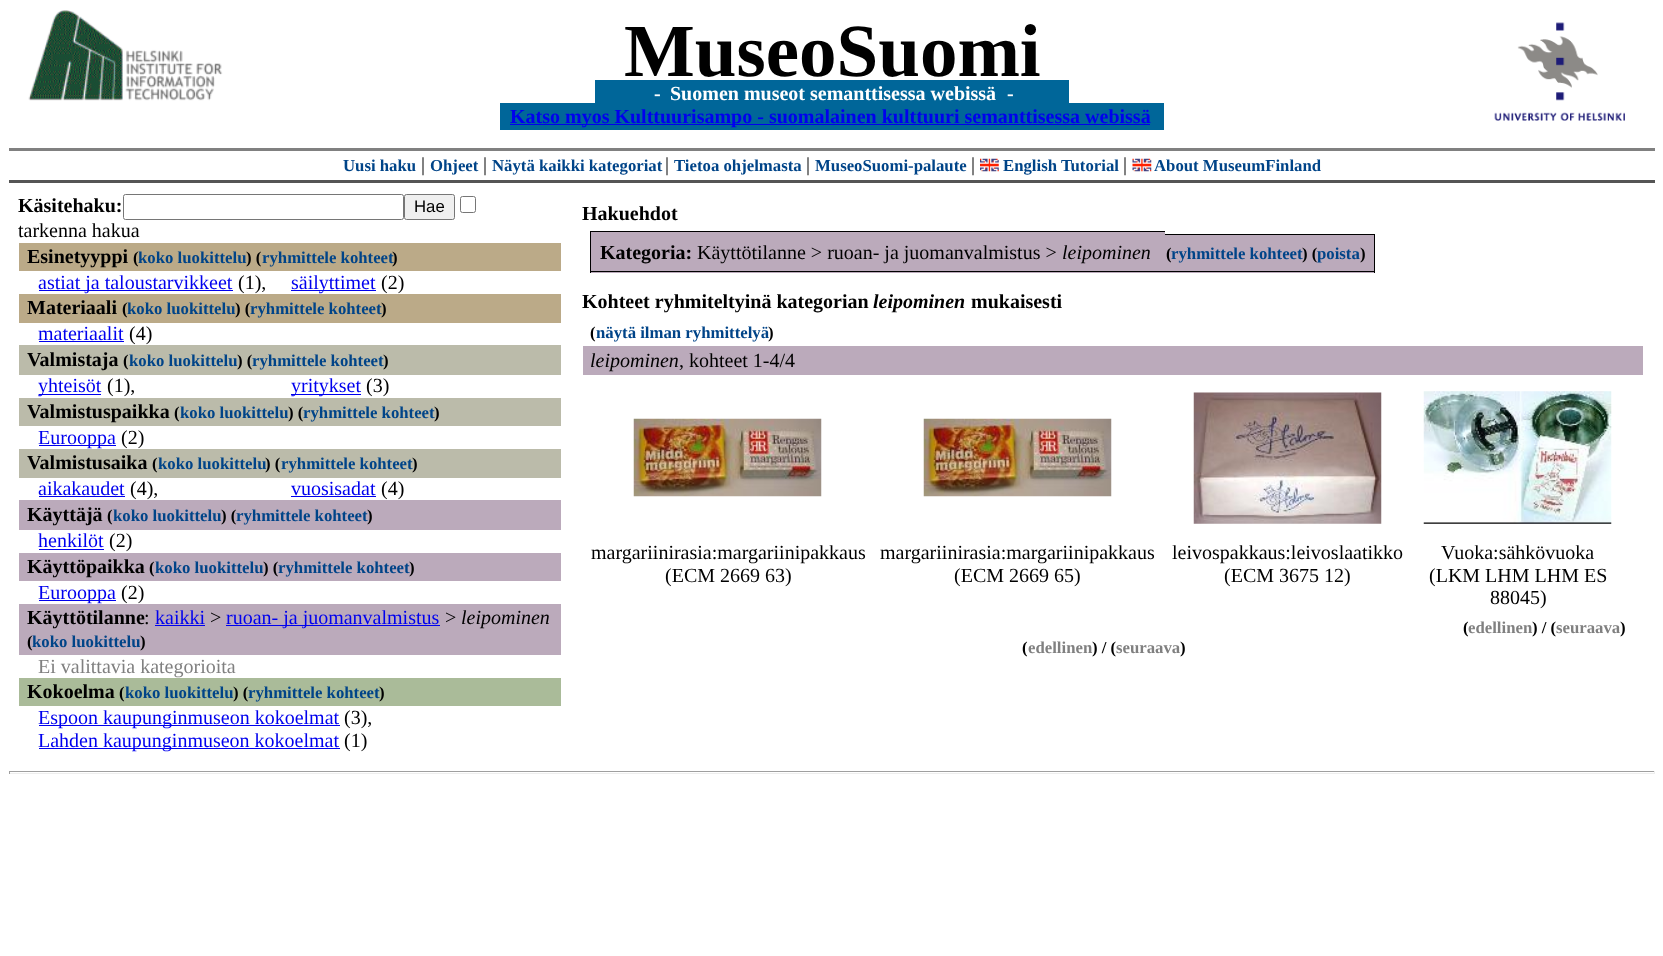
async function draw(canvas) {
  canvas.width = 1663
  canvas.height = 956
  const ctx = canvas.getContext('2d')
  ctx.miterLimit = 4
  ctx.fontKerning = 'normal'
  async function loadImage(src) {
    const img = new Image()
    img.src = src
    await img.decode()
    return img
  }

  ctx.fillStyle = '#fff'
  ctx.fillRect(0, 0, 1663, 956)
  ctx.drawImage(await loadImage('image0.png'), 28, 10, 195, 91)
  ctx.font = 'bold 75px Liberation Serif'
  ctx.fillStyle = '#000'
  ctx.fillText('MuseoSuomi', 624, 76)
  ctx.drawImage(await loadImage('image1.png'), 1494, 22, 131, 99)
  ctx.fillStyle = '#069'
  ctx.fillRect(595, 80, 474, 23)
  ctx.font = 'bold 20px Liberation Serif'
  ctx.fillStyle = '#fff'
  ctx.fillText('-', 654, 100)
  ctx.fillText('Suomen museot semanttisessa webissä', 670, 100)
  ctx.fillText('-', 1007, 100)
  ctx.fillStyle = '#069'
  ctx.fillRect(500, 103, 664, 27)
  ctx.fillStyle = '#00e'
  ctx.fillRect(510, 124, 640, 1)
  ctx.fillText('Katso myos Kulttuurisampo - suomalainen kulttuuri semanttisessa webissä', 510, 123)
  ctx.fillStyle = '#808080'
  ctx.fillRect(9, 148, 1646, 3)
  ctx.fillStyle = '#555'
  ctx.fillRect(9, 180, 1646, 3)
  ctx.font = 'bold 16.75px Liberation Serif'
  ctx.fillStyle = '#048'
  ctx.fillText('Uusi haku', 343, 171)
  ctx.font = '20px Liberation Serif'
  ctx.fillStyle = '#000'
  ctx.fillText('|', 421, 171)
  ctx.font = 'bold 16.75px Liberation Serif'
  ctx.fillStyle = '#048'
  ctx.fillText('Ohjeet', 430, 171)
  ctx.font = '20px Liberation Serif'
  ctx.fillStyle = '#000'
  ctx.fillText('|', 483, 171)
  ctx.font = 'bold 16.75px Liberation Serif'
  ctx.fillStyle = '#048'
  ctx.fillText('Näytä kaikki kategoriat', 492, 171)
  ctx.font = '20px Liberation Serif'
  ctx.fillStyle = '#000'
  ctx.fillText('|', 665, 171)
  ctx.font = 'bold 16.75px Liberation Serif'
  ctx.fillStyle = '#048'
  ctx.fillText('Tietoa ohjelmasta', 674, 171)
  ctx.font = '20px Liberation Serif'
  ctx.fillStyle = '#000'
  ctx.fillText('|', 806, 171)
  ctx.font = 'bold 16.75px Liberation Serif'
  ctx.fillStyle = '#048'
  ctx.fillText('MuseoSuomi-palaute', 815, 171)
  ctx.font = '20px Liberation Serif'
  ctx.fillStyle = '#000'
  ctx.fillText('|', 971, 171)
  ctx.drawImage(await loadImage('image2.png'), 980, 158, 19, 14)
  ctx.font = 'bold 16.75px Liberation Serif'
  ctx.fillStyle = '#048'
  ctx.fillText('English Tutorial', 1003, 171)
  ctx.font = '20px Liberation Serif'
  ctx.fillStyle = '#000'
  ctx.fillText('|', 1123, 171)
  ctx.drawImage(await loadImage('image3.png'), 1132, 158, 20, 14)
  ctx.font = 'bold 16.75px Liberation Serif'
  ctx.fillStyle = '#048'
  ctx.fillText('About MuseumFinland', 1154, 171)
  ctx.font = 'bold 20px Liberation Serif'
  ctx.fillStyle = '#000'
  ctx.fillText('Käsitehaku:', 18, 212)
  ctx.beginPath()
  ctx.roundRect(123.5, 194.5, 280, 25, 2)
  ctx.strokeStyle = '#767676'
  ctx.stroke()
  ctx.fillStyle = '#efefef'
  ctx.beginPath()
  ctx.roundRect(404.5, 194.5, 50, 25, 2)
  ctx.fill()
  ctx.stroke()
  ctx.font = '16.75px Liberation Sans'
  ctx.fillStyle = '#000'
  ctx.fillText('Hae', 414, 212)
  ctx.beginPath()
  ctx.roundRect(460.5, 196.5, 15, 16, 2)
  ctx.stroke()
  ctx.font = '20px Liberation Serif'
  ctx.fillText('tarkenna hakua', 18, 237)
  ctx.fillStyle = '#ba8'
  ctx.fillRect(19, 243, 542, 28)
  ctx.font = 'bold 20px Liberation Serif'
  ctx.fillStyle = '#000'
  ctx.fillText('Esinetyyppi', 27, 263)
  ctx.font = 'bold 16.75px Liberation Serif'
  ctx.fillText('(', 133, 263)
  ctx.fillStyle = '#048'
  ctx.fillText('koko luokittelu', 138, 263)
  ctx.fillStyle = '#000'
  ctx.fillText(') (', 246, 263)
  ctx.fillStyle = '#048'
  ctx.fillText('ryhmittele kohteet', 262, 263)
  ctx.fillStyle = '#000'
  ctx.fillText(')', 392, 263)
  ctx.fillStyle = '#00e'
  ctx.fillRect(39, 290, 194, 1)
  ctx.font = '20px Liberation Serif'
  ctx.fillText('astiat ja taloustarvikkeet', 38, 289)
  ctx.fillStyle = '#000'
  ctx.fillText('(1),', 238, 289)
  ctx.fillStyle = '#00e'
  ctx.fillRect(291, 290, 85, 1)
  ctx.fillText('säilyttimet', 291, 289)
  ctx.fillStyle = '#000'
  ctx.fillText('(2)', 381, 289)
  ctx.fillStyle = '#ba8'
  ctx.fillRect(19, 294, 542, 29)
  ctx.font = 'bold 20px Liberation Serif'
  ctx.fillStyle = '#000'
  ctx.fillText('Materiaali', 27, 314)
  ctx.font = 'bold 16.75px Liberation Serif'
  ctx.fillText('(', 122, 314)
  ctx.fillStyle = '#048'
  ctx.fillText('koko luokittelu', 127, 314)
  ctx.fillStyle = '#000'
  ctx.fillText(') (', 235, 314)
  ctx.fillStyle = '#048'
  ctx.fillText('ryhmittele kohteet', 250, 314)
  ctx.fillStyle = '#000'
  ctx.fillText(')', 381, 314)
  ctx.font = '20px Liberation Serif'
  ctx.fillStyle = '#00e'
  ctx.fillText('materiaalit', 38, 340)
  ctx.fillRect(39, 341, 85, 1)
  ctx.fillStyle = '#000'
  ctx.fillText('(4)', 129, 340)
  ctx.fillStyle = '#bba'
  ctx.fillRect(19, 345, 542, 30)
  ctx.font = 'bold 20px Liberation Serif'
  ctx.fillStyle = '#000'
  ctx.fillText('Valmistaja', 27, 366)
  ctx.font = 'bold 16.75px Liberation Serif'
  ctx.fillText('(', 123, 366)
  ctx.fillStyle = '#048'
  ctx.fillText('koko luokittelu', 129, 366)
  ctx.fillStyle = '#000'
  ctx.fillText(') (', 237, 366)
  ctx.fillStyle = '#048'
  ctx.fillText('ryhmittele kohteet', 252, 366)
  ctx.fillStyle = '#000'
  ctx.fillText(')', 383, 366)
  ctx.fillStyle = '#00e'
  ctx.fillRect(39, 394, 62, 1)
  ctx.font = '20px Liberation Serif'
  ctx.fillText('yhteisöt', 38, 392)
  ctx.fillStyle = '#000'
  ctx.fillText('(1),', 107, 392)
  ctx.fillStyle = '#00e'
  ctx.fillRect(291, 394, 70, 1)
  ctx.fillText('yritykset', 291, 392)
  ctx.fillStyle = '#000'
  ctx.fillText('(3)', 366, 392)
  ctx.fillStyle = '#bba'
  ctx.fillRect(19, 398, 542, 28)
  ctx.font = 'bold 20px Liberation Serif'
  ctx.fillStyle = '#000'
  ctx.fillText('Valmistuspaikka', 27, 418)
  ctx.font = 'bold 16.75px Liberation Serif'
  ctx.fillText('(', 174, 418)
  ctx.fillStyle = '#048'
  ctx.fillText('koko luokittelu', 180, 418)
  ctx.fillStyle = '#000'
  ctx.fillText(') (', 288, 418)
  ctx.fillStyle = '#048'
  ctx.fillText('ryhmittele kohteet', 303, 418)
  ctx.fillStyle = '#000'
  ctx.fillText(')', 434, 418)
  ctx.fillStyle = '#00e'
  ctx.fillRect(39, 445, 77, 1)
  ctx.font = '20px Liberation Serif'
  ctx.fillText('Eurooppa', 38, 444)
  ctx.fillStyle = '#000'
  ctx.fillText('(2)', 121, 444)
  ctx.fillStyle = '#bba'
  ctx.fillRect(19, 449, 542, 29)
  ctx.font = 'bold 20px Liberation Serif'
  ctx.fillStyle = '#000'
  ctx.fillText('Valmistusaika', 27, 469)
  ctx.font = 'bold 16.75px Liberation Serif'
  ctx.fillText('(', 152, 469)
  ctx.fillStyle = '#048'
  ctx.fillText('koko luokittelu', 158, 469)
  ctx.fillStyle = '#000'
  ctx.fillText(') (', 265, 469)
  ctx.fillStyle = '#048'
  ctx.fillText('ryhmittele kohteet', 281, 469)
  ctx.fillStyle = '#000'
  ctx.fillText(')', 412, 469)
  ctx.font = '20px Liberation Serif'
  ctx.fillStyle = '#00e'
  ctx.fillText('aikakaudet', 38, 495)
  ctx.fillRect(39, 496, 86, 1)
  ctx.fillStyle = '#000'
  ctx.fillText('(4),', 130, 495)
  ctx.fillStyle = '#00e'
  ctx.fillText('vuosisadat', 291, 495)
  ctx.fillRect(291, 496, 85, 1)
  ctx.fillStyle = '#000'
  ctx.fillText('(4)', 381, 495)
  ctx.fillStyle = '#bab'
  ctx.fillRect(19, 500, 542, 30)
  ctx.font = 'bold 20px Liberation Serif'
  ctx.fillStyle = '#000'
  ctx.fillText('Käyttäjä', 27, 521)
  ctx.font = 'bold 16.75px Liberation Serif'
  ctx.fillText('(', 107, 521)
  ctx.fillStyle = '#048'
  ctx.fillText('koko luokittelu', 113, 521)
  ctx.fillStyle = '#000'
  ctx.fillText(') (', 221, 521)
  ctx.fillStyle = '#048'
  ctx.fillText('ryhmittele kohteet', 236, 521)
  ctx.fillStyle = '#000'
  ctx.fillText(')', 367, 521)
  ctx.font = '20px Liberation Serif'
  ctx.fillStyle = '#00e'
  ctx.fillText('henkilöt', 38, 547)
  ctx.fillRect(39, 549, 65, 1)
  ctx.fillStyle = '#000'
  ctx.fillText('(2)', 109, 547)
  ctx.fillStyle = '#bab'
  ctx.fillRect(19, 553, 542, 28)
  ctx.font = 'bold 20px Liberation Serif'
  ctx.fillStyle = '#000'
  ctx.fillText('Käyttöpaikka', 27, 573)
  ctx.font = 'bold 16.75px Liberation Serif'
  ctx.fillText('(', 149, 573)
  ctx.fillStyle = '#048'
  ctx.fillText('koko luokittelu', 155, 573)
  ctx.fillStyle = '#000'
  ctx.fillText(') (', 263, 573)
  ctx.fillStyle = '#048'
  ctx.fillText('ryhmittele kohteet', 278, 573)
  ctx.fillStyle = '#000'
  ctx.fillText(')', 409, 573)
  ctx.fillStyle = '#00e'
  ctx.fillRect(39, 600, 77, 1)
  ctx.font = '20px Liberation Serif'
  ctx.fillText('Eurooppa', 38, 599)
  ctx.fillStyle = '#000'
  ctx.fillText('(2)', 121, 599)
  ctx.fillStyle = '#bab'
  ctx.fillRect(19, 604, 542, 51)
  ctx.font = 'bold 20px Liberation Serif'
  ctx.fillStyle = '#000'
  ctx.fillText('Käyttötilanne', 27, 624)
  ctx.font = '20px Liberation Serif'
  ctx.fillText(':', 144, 624)
  ctx.fillStyle = '#00e'
  ctx.fillText('kaikki', 155, 624)
  ctx.fillRect(155, 625, 50, 1)
  ctx.fillStyle = '#000'
  ctx.fillText('>', 210, 624)
  ctx.fillStyle = '#00e'
  ctx.fillRect(226, 625, 214, 1)
  ctx.fillText('ruoan- ja juomanvalmistus', 226, 624)
  ctx.fillStyle = '#000'
  ctx.fillText('>', 445, 624)
  ctx.font = 'italic 20px Liberation Serif'
  ctx.fillText('leipominen', 461, 624)
  ctx.font = 'bold 16.75px Liberation Serif'
  ctx.fillText('(', 27, 647)
  ctx.fillStyle = '#048'
  ctx.fillText('koko luokittelu', 32, 647)
  ctx.fillStyle = '#000'
  ctx.fillText(')', 140, 647)
  ctx.font = '20px Liberation Serif'
  ctx.fillStyle = '#808080'
  ctx.fillText('Ei valittavia kategorioita', 38, 673)
  ctx.fillStyle = '#ab9'
  ctx.fillRect(19, 678, 542, 28)
  ctx.font = 'bold 20px Liberation Serif'
  ctx.fillStyle = '#000'
  ctx.fillText('Kokoelma', 27, 698)
  ctx.font = 'bold 16.75px Liberation Serif'
  ctx.fillText('(', 119, 698)
  ctx.fillStyle = '#048'
  ctx.fillText('koko luokittelu', 125, 698)
  ctx.fillStyle = '#000'
  ctx.fillText(') (', 233, 698)
  ctx.fillStyle = '#048'
  ctx.fillText('ryhmittele kohteet', 248, 698)
  ctx.fillStyle = '#000'
  ctx.fillText(')', 379, 698)
  ctx.fillStyle = '#00e'
  ctx.fillRect(39, 725, 301, 1)
  ctx.font = '20px Liberation Serif'
  ctx.fillText('Espoon kaupunginmuseon kokoelmat', 38, 724)
  ctx.fillStyle = '#000'
  ctx.fillText('(3),', 344, 724)
  ctx.fillStyle = '#00e'
  ctx.fillRect(39, 748, 301, 1)
  ctx.fillText('Lahden kaupunginmuseon kokoelmat', 38, 747)
  ctx.fillStyle = '#000'
  ctx.fillText('(1)', 344, 747)
  ctx.font = 'bold 20px Liberation Serif'
  ctx.fillText('Hakuehdot', 582, 220)
  ctx.fillStyle = '#bab'
  ctx.fillRect(591, 232, 574, 41)
  ctx.fillStyle = '#000'
  ctx.fillText('Kategoria:', 600, 259)
  ctx.fillRect(590, 231, 575, 1)
  ctx.fillRect(590, 271, 575, 1)
  ctx.fillRect(590, 231, 1, 42)
  ctx.font = '20px Liberation Serif'
  ctx.fillText('Käyttötilanne > ruoan- ja juomanvalmistus >', 697, 259)
  ctx.font = 'italic 20px Liberation Serif'
  ctx.fillText('leipominen', 1062, 259)
  ctx.fillStyle = '#bab'
  ctx.fillRect(1165, 234, 6, 39)
  ctx.font = 'bold 16.75px Liberation Serif'
  ctx.fillStyle = '#000'
  ctx.fillText('(', 1166, 259)
  ctx.fillRect(1165, 234, 138, 1)
  ctx.fillRect(1165, 271, 6, 1)
  ctx.fillStyle = '#bab'
  ctx.fillRect(1171, 235, 132, 38)
  ctx.fillStyle = '#000'
  ctx.fillRect(1171, 271, 132, 1)
  ctx.fillStyle = '#048'
  ctx.fillText('ryhmittele kohteet', 1171, 259)
  ctx.fillStyle = '#bab'
  ctx.fillRect(1303, 234, 15, 39)
  ctx.fillStyle = '#000'
  ctx.fillText(') (', 1302, 259)
  ctx.fillRect(1303, 234, 72, 1)
  ctx.fillRect(1303, 271, 15, 1)
  ctx.fillStyle = '#bab'
  ctx.fillRect(1318, 235, 56, 38)
  ctx.fillStyle = '#048'
  ctx.fillText('poista', 1317, 259)
  ctx.fillStyle = '#000'
  ctx.fillRect(1318, 271, 42, 1)
  ctx.fillRect(1374, 234, 1, 39)
  ctx.fillRect(1360, 271, 15, 1)
  ctx.fillText(')', 1360, 259)
  ctx.font = 'bold 20px Liberation Serif'
  ctx.fillText('Kohteet ryhmiteltyinä kategorian', 582, 308)
  ctx.font = 'italic bold 20px Liberation Serif'
  ctx.fillText('leipominen', 873, 308)
  ctx.font = 'bold 20px Liberation Serif'
  ctx.fillText('mukaisesti', 971, 308)
  ctx.font = 'bold 16.75px Liberation Serif'
  ctx.fillText('(', 590, 338)
  ctx.fillStyle = '#048'
  ctx.fillText('näytä ilman ryhmittelyä', 596, 338)
  ctx.fillStyle = '#000'
  ctx.fillText(')', 768, 338)
  ctx.fillStyle = '#bab'
  ctx.fillRect(583, 346, 1060, 29)
  ctx.font = 'italic 20px Liberation Serif'
  ctx.fillStyle = '#000'
  ctx.fillText('leipominen', 590, 367)
  ctx.font = '20px Liberation Serif'
  ctx.fillText(', kohteet 1-4/4', 679, 367)
  ctx.drawImage(await loadImage('image4.png'), 633, 418, 189, 79)
  ctx.drawImage(await loadImage('image5.png'), 923, 418, 189, 79)
  ctx.drawImage(await loadImage('image6.png'), 1193, 392, 189, 132)
  ctx.drawImage(await loadImage('image7.png'), 1423, 391, 189, 133)
  ctx.fillText('margariinirasia:margariinipakkaus', 591, 559)
  ctx.fillText('(ECM 2669 63)', 665, 582)
  ctx.fillText('margariinirasia:margariinipakkaus', 880, 559)
  ctx.fillText('(ECM 2669 65)', 954, 582)
  ctx.fillText('leivospakkaus:leivoslaatikko', 1172, 559)
  ctx.fillText('(ECM 3675 12)', 1224, 582)
  ctx.fillText('Vuoka:sähkövuoka', 1441, 559)
  ctx.fillText('(LKM LHM LHM ES', 1429, 582)
  ctx.fillText('88045)', 1490, 604)
  ctx.font = 'bold 16.75px Liberation Serif'
  ctx.fillText('(', 1463, 633)
  ctx.fillStyle = '#808080'
  ctx.fillText('edellinen', 1468, 633)
  ctx.fillStyle = '#000'
  ctx.fillText(') / (', 1532, 633)
  ctx.fillStyle = '#808080'
  ctx.fillText('seuraava', 1556, 633)
  ctx.fillStyle = '#000'
  ctx.fillText(')', 1620, 633)
  ctx.fillText('(', 1022, 653)
  ctx.fillStyle = '#808080'
  ctx.fillText('edellinen', 1028, 653)
  ctx.fillStyle = '#000'
  ctx.fillText(') / (', 1092, 653)
  ctx.fillStyle = '#808080'
  ctx.fillText('seuraava', 1116, 653)
  ctx.fillStyle = '#000'
  ctx.fillText(')', 1180, 653)
  ctx.fillStyle = '#9f9f9f'
  ctx.fillRect(9, 771, 1646, 1)
  ctx.fillStyle = '#eee'
  ctx.fillRect(1654, 771, 1, 3)
  ctx.fillRect(9, 773, 1646, 1)
  ctx.fillStyle = '#9f9f9f'
  ctx.fillRect(9, 771, 1, 3)
}

draw(document.querySelector('canvas'))
